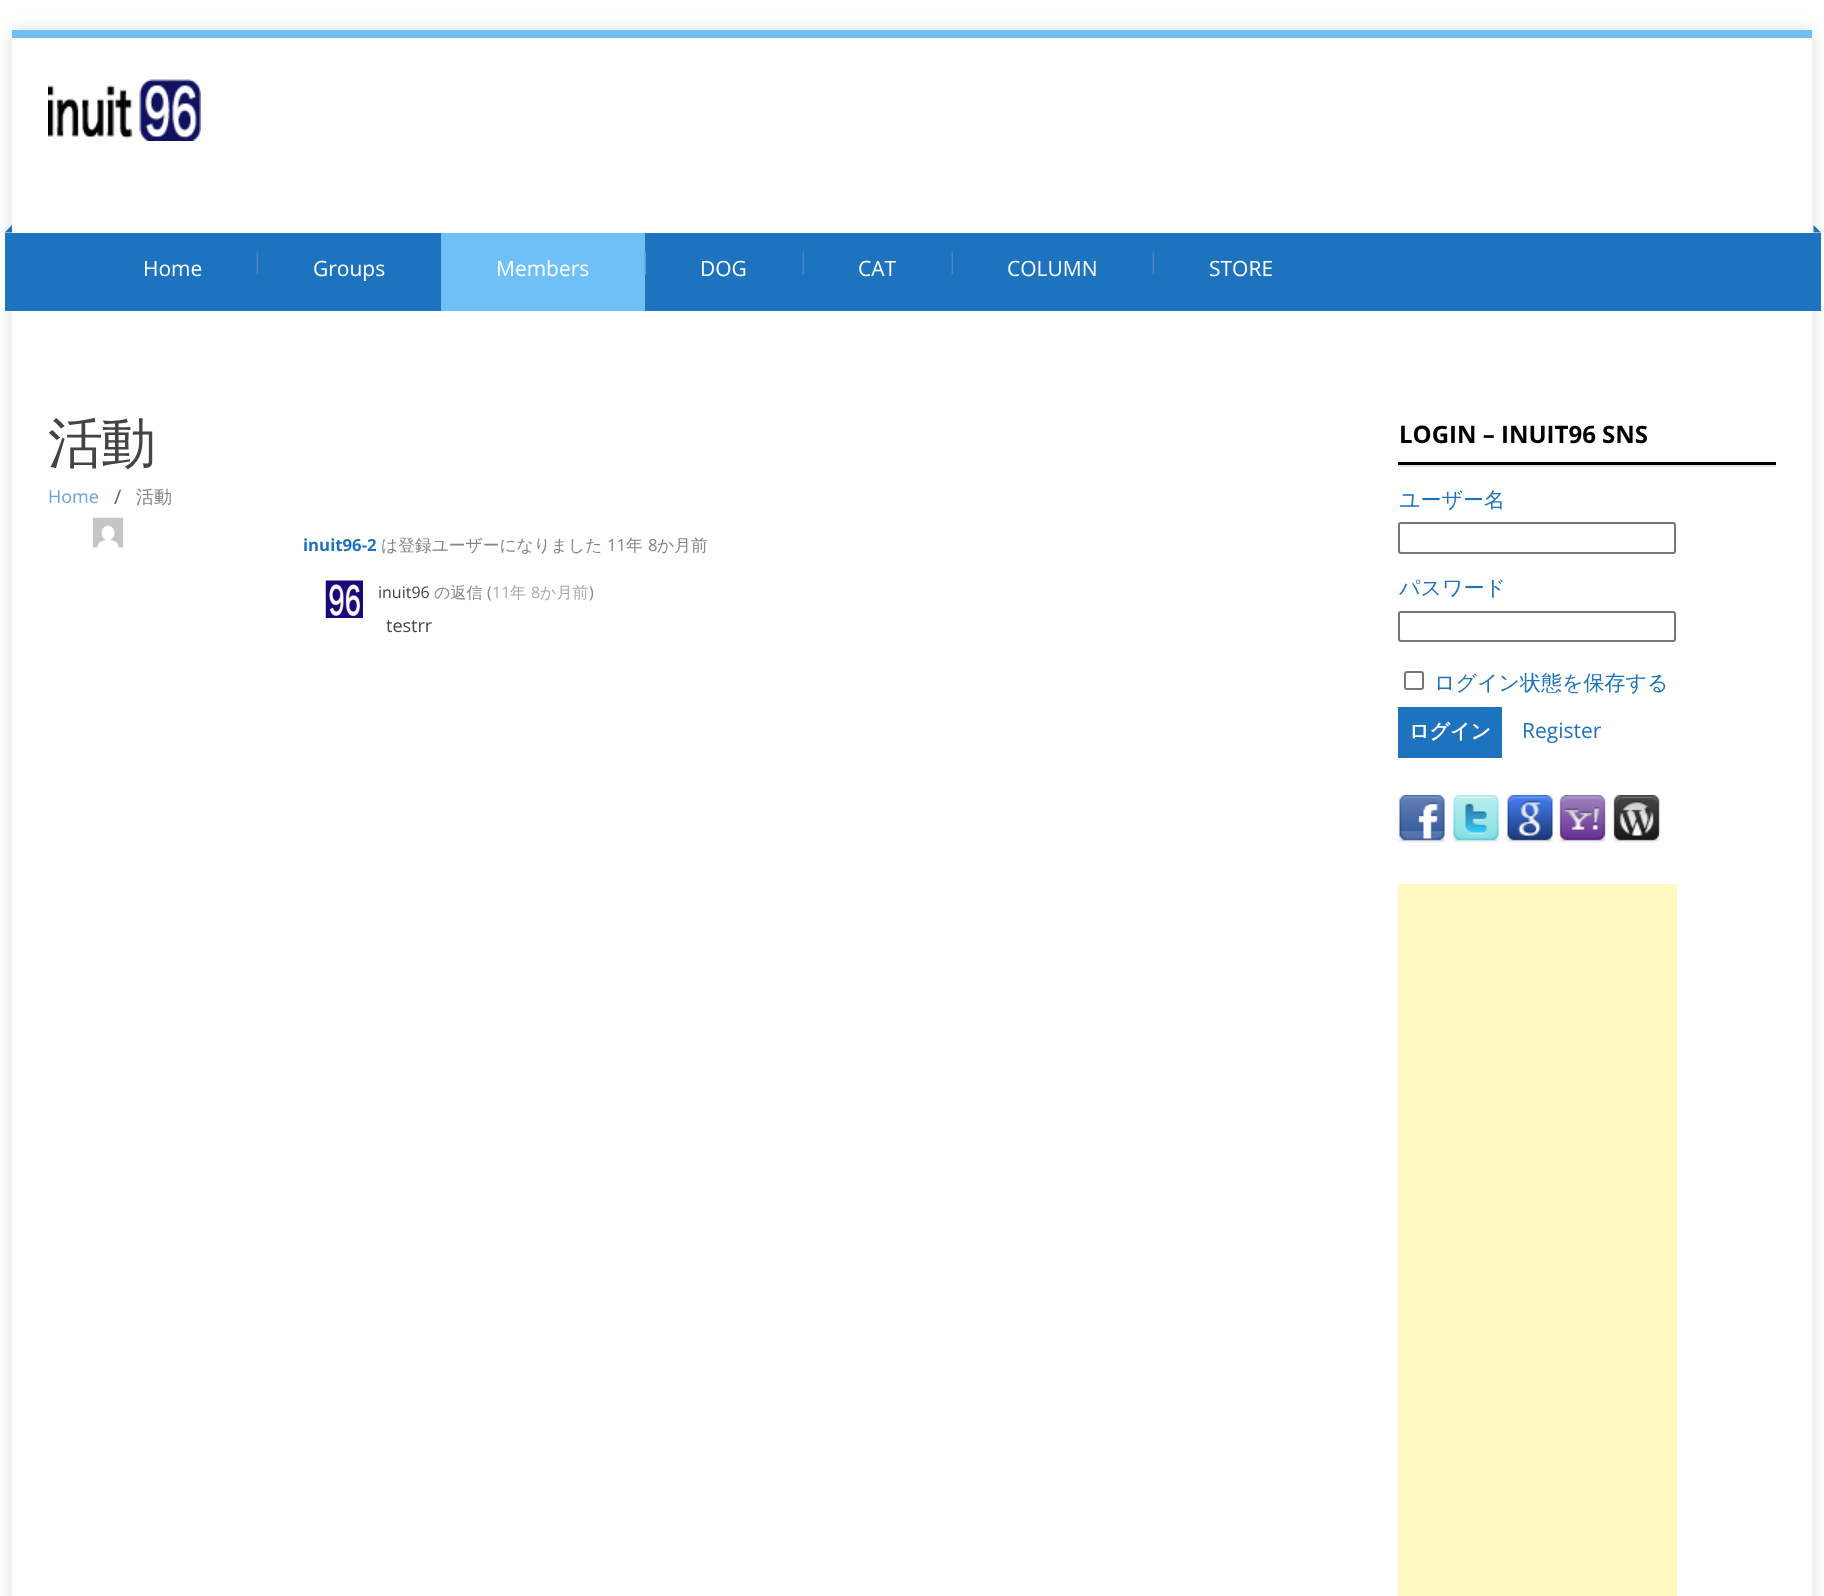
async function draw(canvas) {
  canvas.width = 1824
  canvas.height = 1596
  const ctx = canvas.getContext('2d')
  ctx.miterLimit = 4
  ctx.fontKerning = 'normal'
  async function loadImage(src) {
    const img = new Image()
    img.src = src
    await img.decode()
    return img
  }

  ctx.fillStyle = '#fff'
  ctx.fillRect(0, 0, 1824, 1596)
  ctx.save()
  ctx.beginPath()
  ctx.moveTo(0, 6)
  ctx.lineTo(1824, 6)
  ctx.lineTo(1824, 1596)
  ctx.lineTo(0, 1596)
  ctx.closePath()
  ctx.moveTo(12, 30)
  ctx.lineTo(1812, 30)
  ctx.lineTo(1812, 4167)
  ctx.lineTo(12, 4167)
  ctx.closePath()
  ctx.clip('evenodd')
  ctx.fillStyle = '#57575733'
  ctx.filter = 'blur(7.5px)'
  ctx.beginPath()
  ctx.rect(12, 30, 1800, 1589)
  ctx.fill()
  ctx.filter = 'none'
  ctx.restore()
  ctx.fillStyle = '#6ec0f6'
  ctx.fillRect(12, 30, 1800, 8)
  ctx.drawImage(await loadImage('image0.png'), 48, 79, 153, 62)
  ctx.fillStyle = '#1e73be'
  ctx.fillRect(5, 233, 1816, 78)
  ctx.beginPath()
  ctx.moveTo(12, 232.5)
  ctx.lineTo(4.5, 232.5)
  ctx.lineTo(12, 225)
  ctx.closePath()
  ctx.fill()
  ctx.beginPath()
  ctx.moveTo(1821, 232.5)
  ctx.lineTo(1813.5, 232.5)
  ctx.lineTo(1813.5, 225)
  ctx.closePath()
  ctx.fill()
  ctx.font = '21px Open Sans'
  ctx.fillStyle = '#fff'
  ctx.fillText('Home', 143, 276)
  ctx.font = '23px Open Sans'
  ctx.fillStyle = '#4088c8'
  ctx.fillText('|', 251, 269)
  ctx.font = '21px Open Sans'
  ctx.fillStyle = '#fff'
  ctx.fillText('Groups', 313, 276)
  ctx.fillStyle = '#6ec0f6'
  ctx.fillRect(441, 233, 204, 78)
  ctx.fillStyle = '#fff'
  ctx.fillText('Members', 496, 276)
  ctx.font = '23px Open Sans'
  ctx.fillStyle = '#569ed8'
  ctx.fillText('|', 639, 269)
  ctx.font = '21px Open Sans'
  ctx.fillStyle = '#fff'
  ctx.fillText('DOG', 700, 276)
  ctx.font = '23px Open Sans'
  ctx.fillStyle = '#4088c8'
  ctx.fillText('|', 797, 269)
  ctx.font = '21px Open Sans'
  ctx.fillStyle = '#fff'
  ctx.fillText('CAT', 858, 276)
  ctx.font = '23px Open Sans'
  ctx.fillStyle = '#4088c8'
  ctx.fillText('|', 946, 269)
  ctx.font = '21px Open Sans'
  ctx.fillStyle = '#fff'
  ctx.fillText('COLUMN', 1007, 276)
  ctx.font = '23px Open Sans'
  ctx.fillStyle = '#4088c8'
  ctx.fillText('|', 1147, 269)
  ctx.font = '21px Open Sans'
  ctx.fillStyle = '#fff'
  ctx.fillText('STORE', 1209, 276)
  ctx.letterSpacing = '-2px'
  ctx.font = '500 55px WenQuanYi Zen Hei'
  ctx.fillStyle = '#444'
  ctx.fillText('活動', 48, 462)
  ctx.letterSpacing = '0px'
  ctx.font = '18px Open Sans'
  ctx.fillStyle = '#6da4d5'
  ctx.fillText('Home', 48, 503)
  ctx.font = '20px Open Sans'
  ctx.fillStyle = '#646464'
  ctx.fillText('/', 114, 504)
  ctx.font = '500 18px WenQuanYi Zen Hei'
  ctx.fillStyle = '#858585'
  ctx.fillText('活動', 136, 503)
  ctx.drawImage(await loadImage('image1.png'), 93, 517, 30, 31)
  ctx.font = 'bold 16.75px Open Sans'
  ctx.fillStyle = '#1e73be'
  ctx.fillText('inuit96-2', 303, 551)
  ctx.font = '500 16.75px WenQuanYi Zen Hei'
  ctx.fillStyle = '#858585'
  ctx.fillText('は登録ユーザーになりました', 381, 551)
  ctx.font = '16.75px Open Sans'
  ctx.fillText('11', 607, 551)
  ctx.font = '500 16.75px WenQuanYi Zen Hei'
  ctx.fillText('年', 626, 551)
  ctx.font = '16.75px Open Sans'
  ctx.fillText('8', 648, 551)
  ctx.font = '500 16.75px WenQuanYi Zen Hei'
  ctx.fillText('か月前', 657, 551)
  ctx.drawImage(await loadImage('image2.png'), 325, 580, 38, 38)
  ctx.font = '16px Open Sans'
  ctx.fillStyle = '#444'
  ctx.fillText('inuit96', 378, 598)
  ctx.font = '500 16px WenQuanYi Zen Hei'
  ctx.fillStyle = '#858585'
  ctx.fillText('の返信', 434, 598)
  ctx.font = '16px Open Sans'
  ctx.fillText('(', 487, 598)
  ctx.fillStyle = '#aaa'
  ctx.fillText('11', 492, 598)
  ctx.font = '500 16px WenQuanYi Zen Hei'
  ctx.fillText('年', 510, 598)
  ctx.font = '16px Open Sans'
  ctx.fillText('8', 531, 598)
  ctx.font = '500 16px WenQuanYi Zen Hei'
  ctx.fillText('か月前', 540, 598)
  ctx.font = '16px Open Sans'
  ctx.fillStyle = '#858585'
  ctx.fillText(')', 589, 598)
  ctx.font = '18px Open Sans'
  ctx.fillStyle = '#444'
  ctx.fillText('testrr', 386, 632)
  ctx.fillStyle = '#e6e6e6'
  ctx.fillRect(1398, 465, 378, 2)
  ctx.fillStyle = '#000'
  ctx.fillRect(1398, 462, 378, 3)
  ctx.font = 'bold 24px Open Sans'
  ctx.fillText('LOGIN – INUIT96 SNS', 1399, 443)
  ctx.font = '500 21px WenQuanYi Zen Hei'
  ctx.fillStyle = '#1e73be'
  ctx.fillText('ユーザー名', 1399, 507)
  ctx.beginPath()
  ctx.roundRect(1399, 523, 276, 30, 2)
  ctx.strokeStyle = '#767676'
  ctx.lineWidth = 2
  ctx.stroke()
  ctx.fillText('パスワード', 1399, 595)
  ctx.beginPath()
  ctx.roundRect(1399, 612, 276, 29, 2)
  ctx.stroke()
  ctx.beginPath()
  ctx.roundRect(1405, 672, 18, 17, 2)
  ctx.stroke()
  ctx.fillText('ログイン状態を保存する', 1434, 690)
  ctx.fillRect(1398, 707, 104, 51)
  ctx.font = 'bold 20px WenQuanYi Zen Hei'
  ctx.fillStyle = '#fff'
  ctx.fillText('ログイン', 1409, 738)
  ctx.font = '21px Open Sans'
  ctx.fillStyle = '#1e73be'
  ctx.fillText('Register', 1522, 738)
  ctx.drawImage(await loadImage('image3.png'), 1398, 795, 48, 48)
  ctx.drawImage(await loadImage('image4.png'), 1453, 795, 46, 48)
  ctx.drawImage(await loadImage('image5.png'), 1507, 795, 46, 48)
  ctx.drawImage(await loadImage('image6.png'), 1559, 795, 47, 48)
  ctx.drawImage(await loadImage('image7.png'), 1613, 795, 47, 48)
  ctx.fillStyle = '#fff9c0'
  ctx.fillRect(1398, 884, 279, 712)
}

draw(document.querySelector('canvas'))
